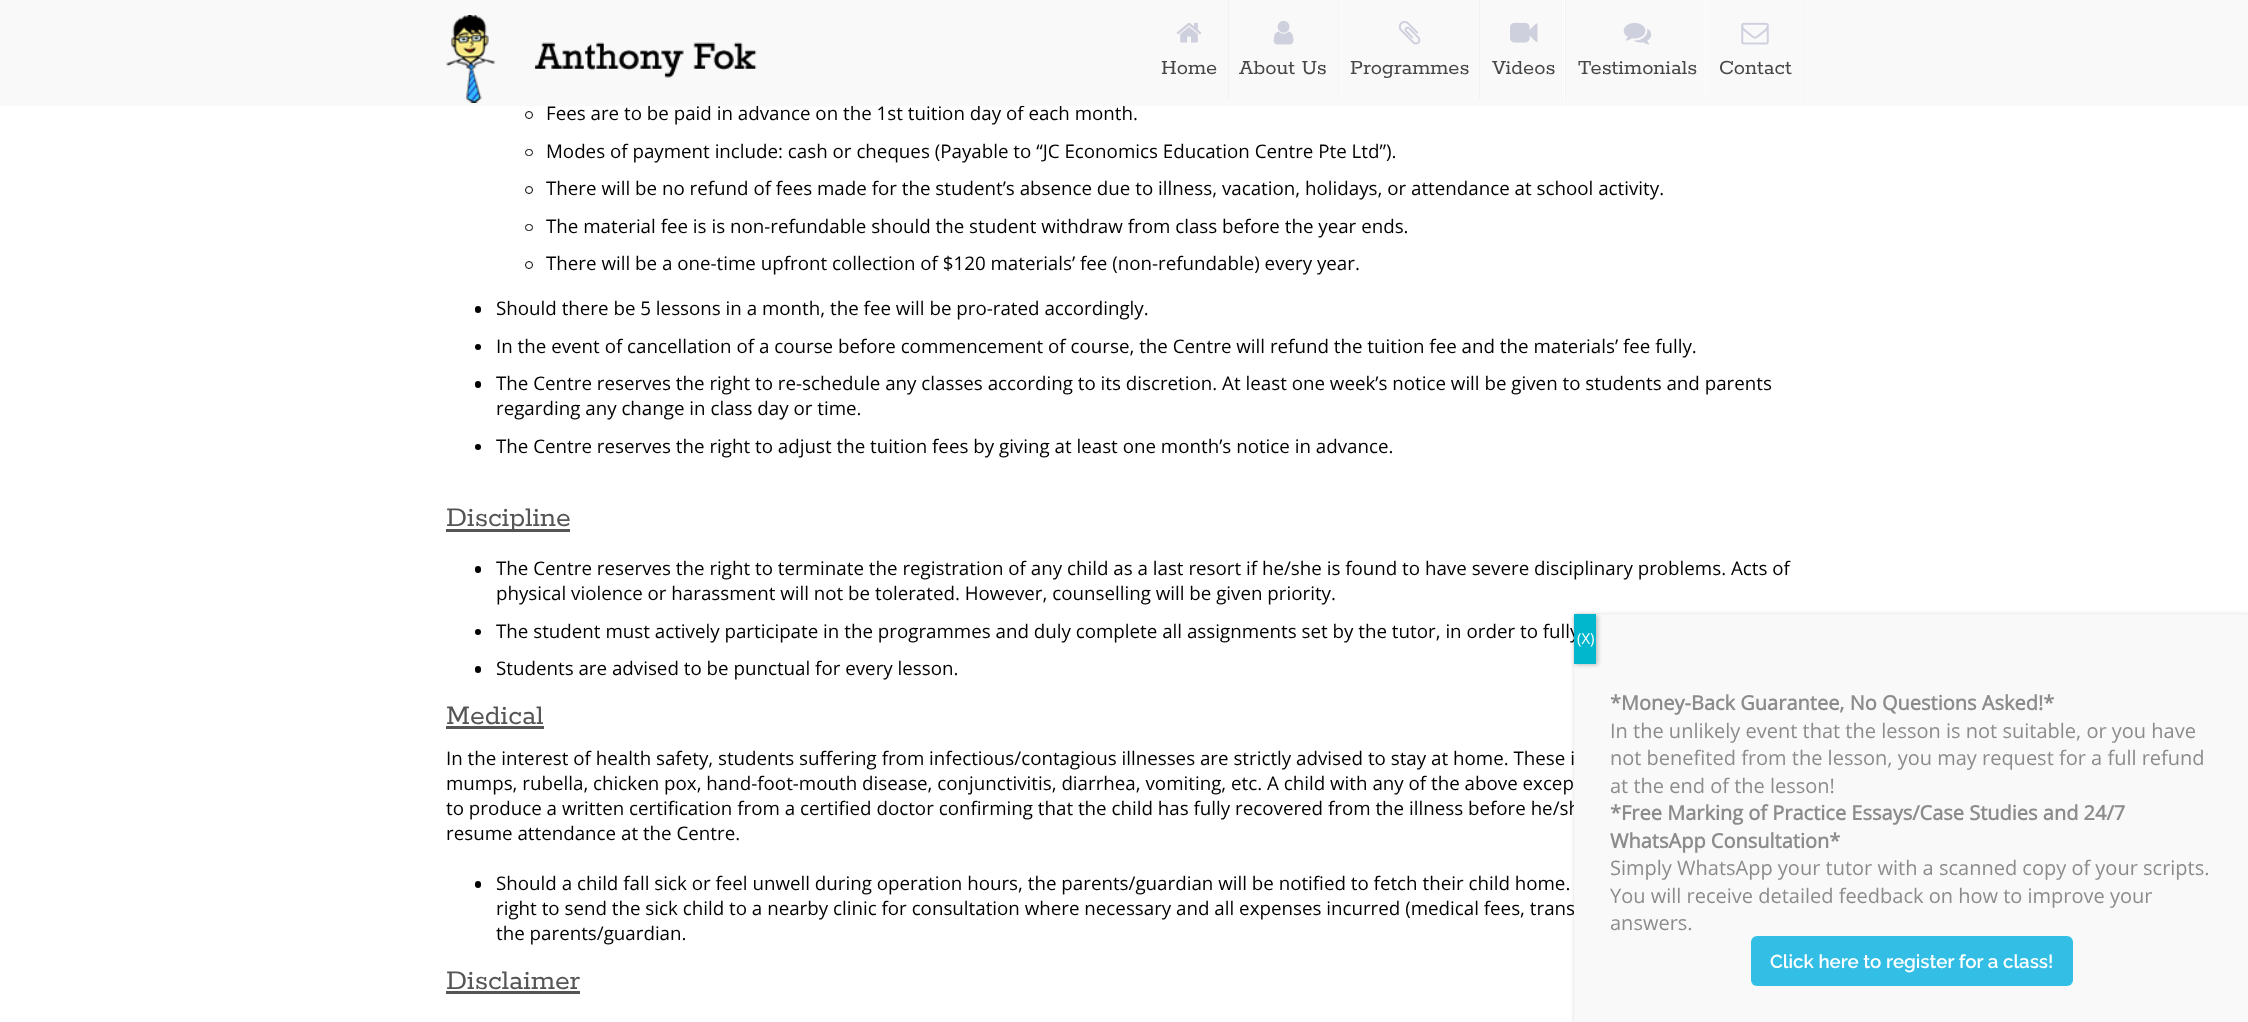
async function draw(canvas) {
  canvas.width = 2248
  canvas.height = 1022
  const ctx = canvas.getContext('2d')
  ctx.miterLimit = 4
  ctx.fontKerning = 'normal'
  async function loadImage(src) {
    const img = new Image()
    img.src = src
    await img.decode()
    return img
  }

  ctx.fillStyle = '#fff'
  ctx.fillRect(0, 0, 2248, 1022)
  ctx.font = '18.75px Open Sans'
  ctx.fillStyle = '#000'
  ctx.fillText('Fees are to be paid in advance on the 1st tuition day of each month.', 546, 120)
  ctx.fillStyle = '#f9f9f9'
  ctx.fillRect(0, 0, 2248, 106)
  ctx.drawImage(await loadImage('image0.png'), 446, 15, 311, 88)
  ctx.fillStyle = '#f2f2f2'
  ctx.fillRect(1228, 0, 1, 100)
  ctx.drawImage(await loadImage('image1.png'), 1176, 22, 26, 21)
  ctx.font = '600 22.5px Rokkitt'
  ctx.fillStyle = '#464646'
  ctx.fillText('Home', 1161, 74)
  ctx.fillStyle = '#f5f5f5'
  ctx.fillRect(1338, 0, 1, 100)
  ctx.drawImage(await loadImage('image2.png'), 1273, 21, 21, 24)
  ctx.fillStyle = '#464646'
  ctx.fillText('About Us', 1239, 74)
  ctx.fillStyle = '#f3f3f3'
  ctx.fillRect(1479, 0, 1, 100)
  ctx.drawImage(await loadImage('image3.png'), 1398, 21, 23, 24)
  ctx.fillStyle = '#464646'
  ctx.fillText('Programmes', 1350, 74)
  ctx.drawImage(await loadImage('image4.png'), 1564, 0, 2, 100)
  ctx.drawImage(await loadImage('image5.png'), 1510, 22, 28, 21)
  ctx.fillText('Videos', 1492, 74)
  ctx.fillStyle = '#fdfdfd'
  ctx.fillRect(1705, 0, 1, 100)
  ctx.drawImage(await loadImage('image6.png'), 1623, 22, 29, 23)
  ctx.fillStyle = '#464646'
  ctx.fillText('Testimonials', 1578, 74)
  ctx.fillStyle = '#f5f5f5'
  ctx.fillRect(1803, 0, 1, 100)
  ctx.drawImage(await loadImage('image7.png'), 1741, 22, 28, 23)
  ctx.fillStyle = '#464646'
  ctx.fillText('Contact', 1719, 74)
  ctx.beginPath()
  ctx.arc(529, 115, 3.5, 0, 2 * Math.PI)
  ctx.strokeStyle = '#000'
  ctx.stroke()
  ctx.beginPath()
  ctx.roundRect(525.5, 149.5, 7, 6, 3)
  ctx.stroke()
  ctx.font = '18.75px Open Sans'
  ctx.fillStyle = '#000'
  ctx.fillText('Modes of payment include: cash or cheques (Payable to “JC Economics Education Centre Pte Ltd”).', 546, 158)
  ctx.beginPath()
  ctx.arc(529, 190, 3.5, 0, 2 * Math.PI)
  ctx.stroke()
  ctx.fillText('There will be no refund of fees made for the student’s absence due to illness, vacation, holidays, or attendance at school activity.', 546, 195)
  ctx.beginPath()
  ctx.roundRect(525.5, 224.5, 7, 6, 3)
  ctx.stroke()
  ctx.fillText('The material fee is is non-refundable should the student withdraw from class before the year ends.', 546, 233)
  ctx.beginPath()
  ctx.arc(529, 265, 3.5, 0, 2 * Math.PI)
  ctx.stroke()
  ctx.fillText('There will be a one-time upfront collection of $120 materials’ fee (non-refundable) every year.', 546, 270)
  ctx.beginPath()
  ctx.roundRect(475, 306, 6, 7, 3)
  ctx.fill()
  ctx.fillText('Should there be 5 lessons in a month, the fee will be pro-rated accordingly.', 496, 315)
  ctx.beginPath()
  ctx.arc(478, 347, 3, 0, 2 * Math.PI)
  ctx.fill()
  ctx.fillText('In the event of cancellation of a course before commencement of course, the Centre will refund the tuition fee and the materials’ fee fully.', 496, 353)
  ctx.beginPath()
  ctx.roundRect(475, 381, 6, 7, 3)
  ctx.fill()
  ctx.fillText('The Centre reserves the right to re-schedule any classes according to its discretion. At least one week’s notice will be given to students and parents', 496, 390)
  ctx.fillText('regarding any change in class day or time.', 496, 415)
  ctx.beginPath()
  ctx.arc(478, 447, 3, 0, 2 * Math.PI)
  ctx.fill()
  ctx.fillText('The Centre reserves the right to adjust the tuition fees by giving at least one month’s notice in advance.', 496, 453)
  ctx.fillStyle = '#555'
  ctx.fillRect(446, 529, 124, 3)
  ctx.font = '600 30px Rokkitt'
  ctx.fillText('Discipline', 446, 526)
  ctx.fillStyle = '#000'
  ctx.beginPath()
  ctx.roundRect(475, 566, 6, 7, 3)
  ctx.fill()
  ctx.font = '18.75px Open Sans'
  ctx.fillText('The Centre reserves the right to terminate the registration of any child as a last resort if he/she is found to have severe disciplinary problems. Acts of', 496, 575)
  ctx.fillText('physical violence or harassment will not be tolerated. However, counselling will be given priority.', 496, 600)
  ctx.beginPath()
  ctx.arc(478, 632, 3, 0, 2 * Math.PI)
  ctx.fill()
  ctx.fillText('The student must actively participate in the programmes and duly complete all assignments set by the tutor, in order to fully', 496, 638)
  ctx.beginPath()
  ctx.roundRect(475, 666, 6, 7, 3)
  ctx.fill()
  ctx.fillText('Students are advised to be punctual for every lesson.', 496, 675)
  ctx.font = '600 30px Rokkitt'
  ctx.fillStyle = '#555'
  ctx.fillText('Medical', 446, 724)
  ctx.fillRect(446, 726, 98, 3)
  ctx.font = '18.75px Open Sans'
  ctx.fillStyle = '#000'
  ctx.fillText('In the interest of health safety, students suffering from infectious/contagious illnesses are strictly advised to stay at home. These i', 446, 765)
  ctx.fillText('mumps, rubella, chicken pox, hand-foot-mouth disease, conjunctivitis, diarrhea, vomiting, etc. A child with any of the above excep', 446, 790)
  ctx.fillText('to produce a written certification from a certified doctor confirming that the child has fully recovered from the illness before he/sh', 446, 815)
  ctx.fillText('resume attendance at the Centre.', 446, 840)
  ctx.beginPath()
  ctx.roundRect(475, 881, 6, 7, 3)
  ctx.fill()
  ctx.fillText('Should a child fall sick or feel unwell during operation hours, the parents/guardian will be notified to fetch their child home.', 496, 890)
  ctx.fillText('right to send the sick child to a nearby clinic for consultation where necessary and all expenses incurred (medical fees, trans', 496, 915)
  ctx.fillText('the parents/guardian.', 496, 940)
  ctx.font = '600 30px Rokkitt'
  ctx.fillStyle = '#555'
  ctx.fillText('Disclaimer', 446, 989)
  ctx.fillRect(446, 991, 134, 3)
  ctx.fillStyle = '#0202023b'
  ctx.filter = 'blur(2px)'
  ctx.beginPath()
  ctx.rect(1575, 615, 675, 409)
  ctx.fill()
  ctx.filter = 'none'
  ctx.fillStyle = '#f9f9f9'
  ctx.fillRect(1574, 614, 674, 408)
  ctx.fillStyle = '#0202023b'
  ctx.filter = 'blur(2px)'
  ctx.beginPath()
  ctx.rect(1575, 615, 23, 50)
  ctx.fill()
  ctx.filter = 'none'
  ctx.fillStyle = '#00b7cd'
  ctx.fillRect(1574, 614, 22, 50)
  ctx.font = '15px Open Sans'
  ctx.fillStyle = '#fff'
  ctx.fillText('(X)', 1577, 644)
  ctx.font = 'bold 20px Open Sans'
  ctx.fillStyle = '#8c8c8c'
  ctx.fillText('*Money-Back Guarantee, No Questions Asked!*', 1610, 710)
  ctx.font = '20px Open Sans'
  ctx.fillText('In the unlikely event that the lesson is not suitable, or you have', 1610, 738)
  ctx.fillText('not benefited from the lesson, you may request for a full refund', 1610, 765)
  ctx.fillText('at the end of the lesson!', 1610, 793)
  ctx.font = 'bold 20px Open Sans'
  ctx.fillText('*Free Marking of Practice Essays/Case Studies and 24/7', 1610, 820)
  ctx.fillText('WhatsApp Consultation*', 1610, 848)
  ctx.font = '20px Open Sans'
  ctx.fillText('Simply WhatsApp your tutor with a scanned copy of your scripts.', 1610, 875)
  ctx.fillText('You will receive detailed feedback on how to improve your', 1610, 903)
  ctx.fillText('answers.', 1610, 930)
  ctx.fillStyle = '#33bee5'
  ctx.beginPath()
  ctx.roundRect(1751, 936, 322, 50, 6)
  ctx.fill()
  ctx.font = '600 18.75px Raleway'
  ctx.fillStyle = '#fff'
  ctx.fillText('Click here to register for a class!', 1770, 968)
}

draw(document.querySelector('canvas'))
